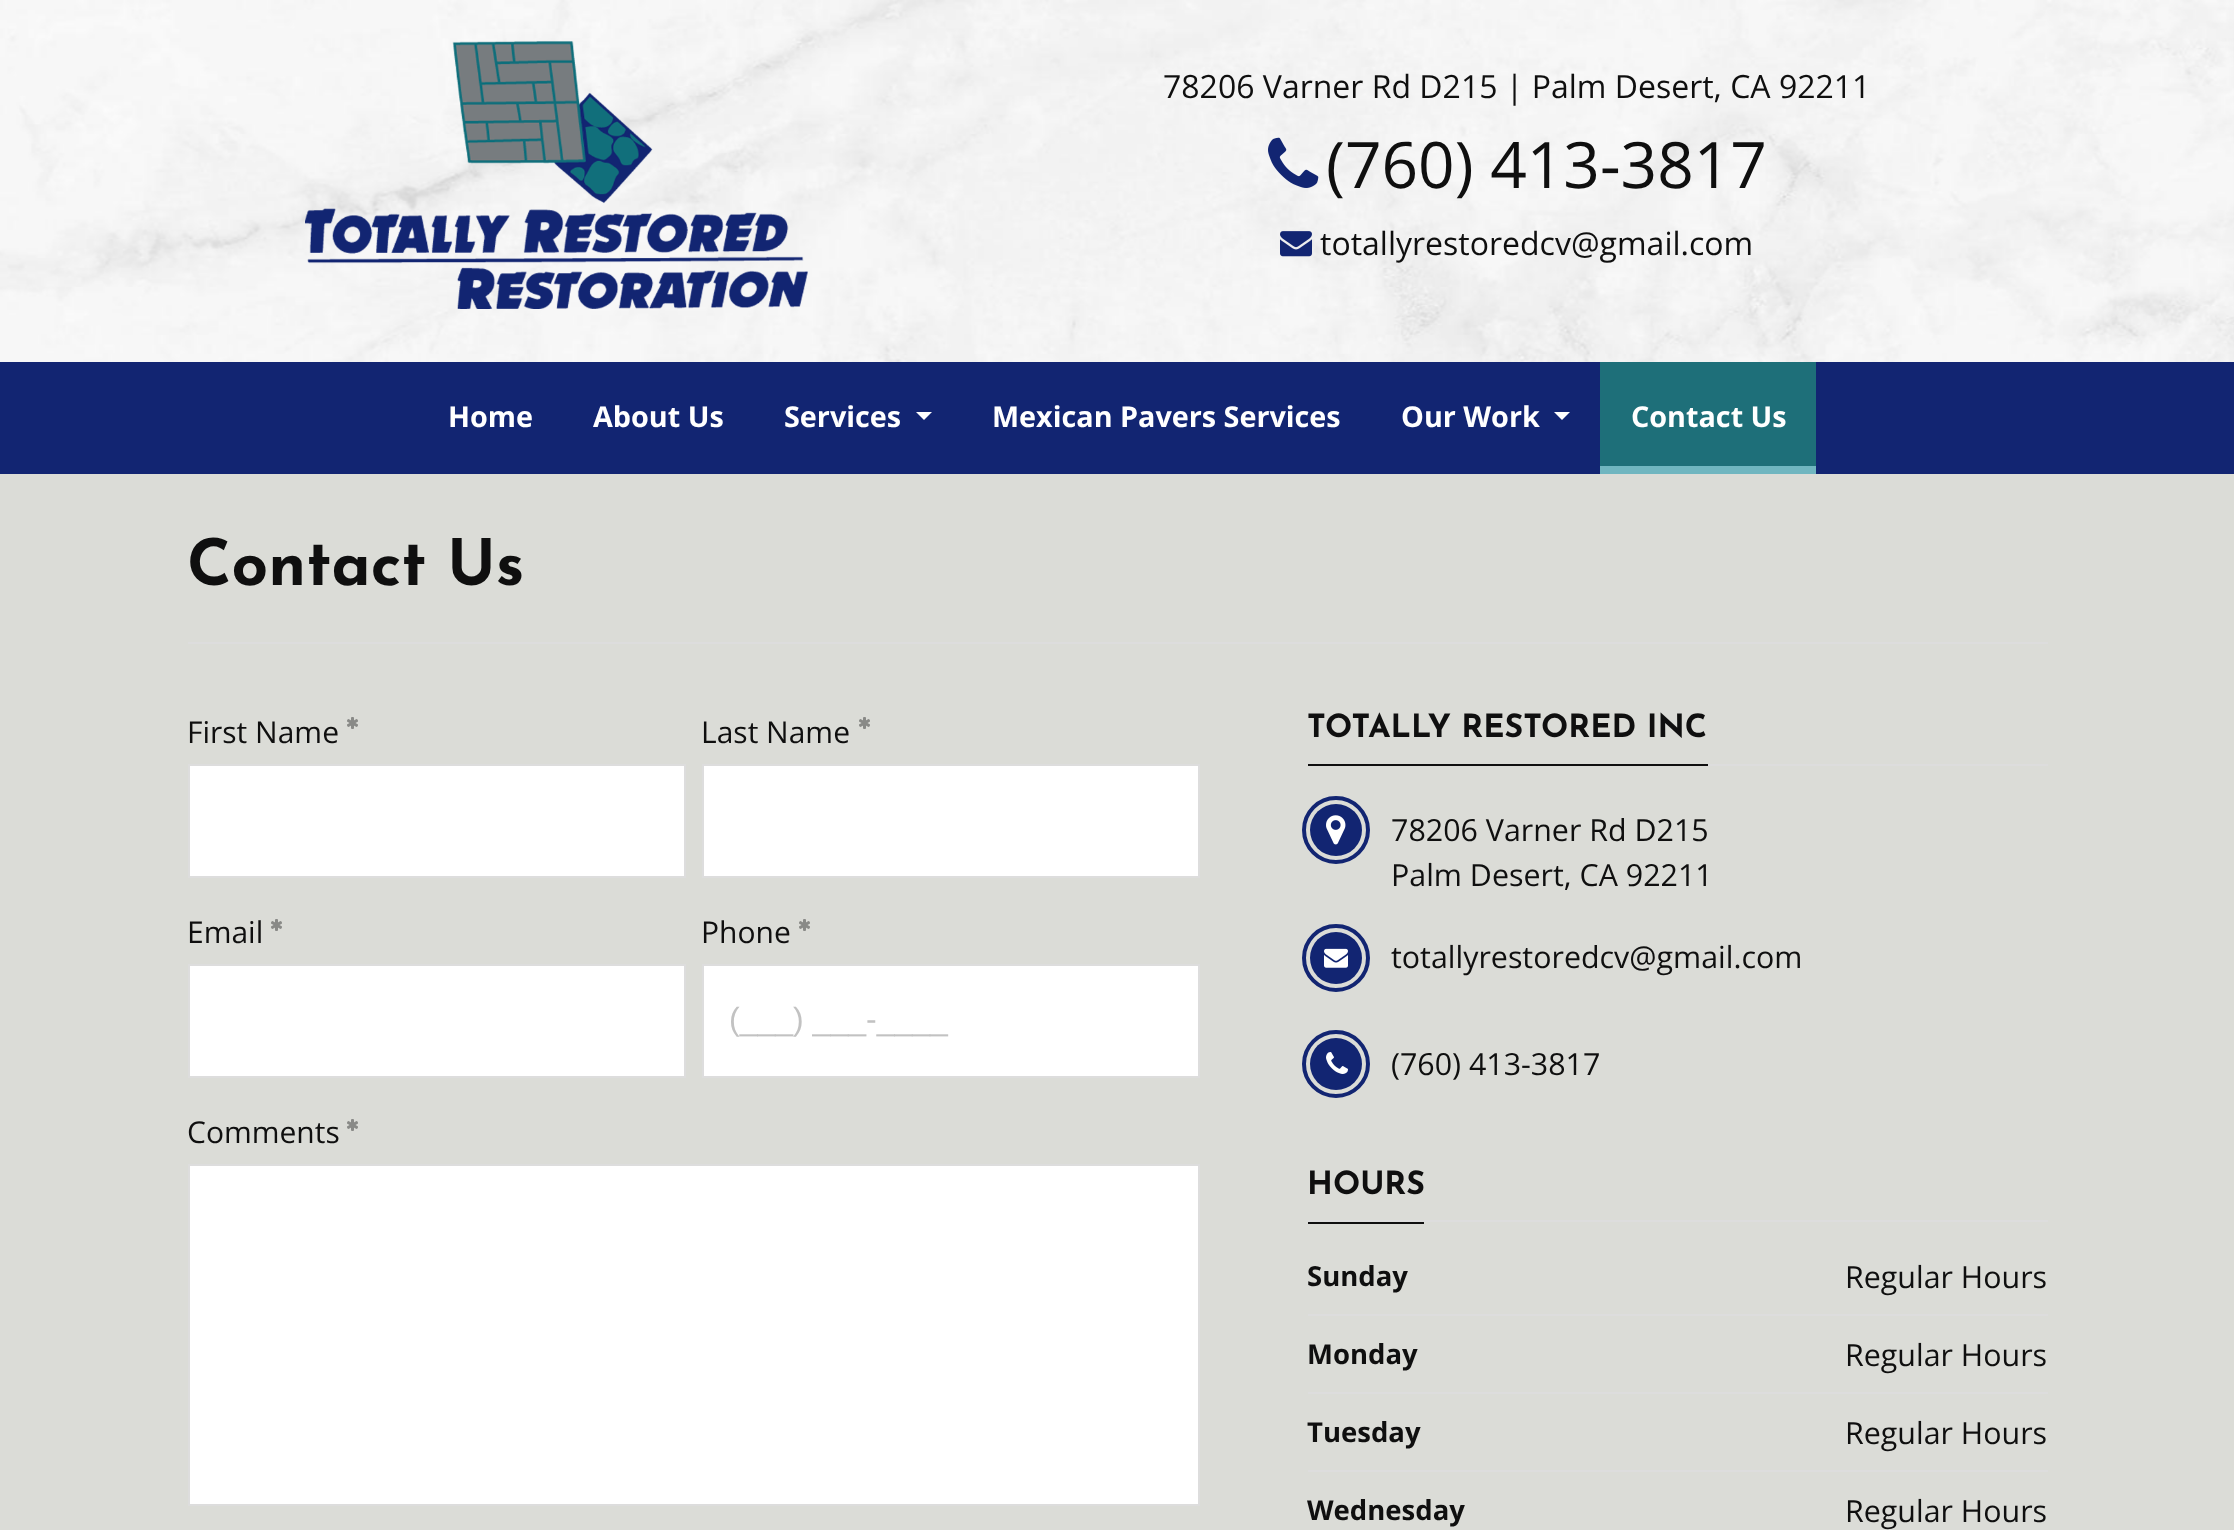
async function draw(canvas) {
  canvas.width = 2234
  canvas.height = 1530
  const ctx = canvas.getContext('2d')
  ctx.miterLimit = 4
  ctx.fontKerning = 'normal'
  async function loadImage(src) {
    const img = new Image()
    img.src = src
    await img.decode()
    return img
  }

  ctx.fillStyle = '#dbdcd7'
  ctx.fillRect(0, 0, 2234, 1530)
  ctx.drawImage(await loadImage('image0.png'), 0, 0, 2234, 362)
  ctx.drawImage(await loadImage('image1.png'), 305, 41, 503, 268)
  ctx.font = '32px Open Sans'
  ctx.fillStyle = '#0f0f0f'
  ctx.fillText('78206 Varner Rd D215 | Palm Desert, CA 92211', 1163, 98)
  ctx.drawImage(await loadImage('image2.png'), 1268, 137, 51, 51)
  ctx.font = '64px Open Sans'
  ctx.fillText('(760) 413-3817', 1326, 188)
  ctx.drawImage(await loadImage('image3.png'), 1280, 231, 32, 26)
  ctx.font = '32px Open Sans'
  ctx.fillText('totallyrestoredcv@gmail.com', 1320, 255)
  ctx.fillStyle = '#122572'
  ctx.fillRect(0, 362, 2234, 112)
  ctx.font = 'bold 28.75px Open Sans'
  ctx.fillStyle = '#fff'
  ctx.fillText('Home', 448, 427)
  ctx.fillText('About Us', 593, 427)
  ctx.fillText('Services', 784, 427)
  ctx.beginPath()
  ctx.moveTo(916, 412)
  ctx.lineTo(932, 412)
  ctx.lineTo(924, 420)
  ctx.closePath()
  ctx.fill()
  ctx.fillText('Mexican Pavers Services', 992, 427)
  ctx.fillText('Our Work', 1401, 427)
  ctx.beginPath()
  ctx.moveTo(1554, 412)
  ctx.lineTo(1570, 412)
  ctx.lineTo(1562, 420)
  ctx.closePath()
  ctx.fill()
  ctx.fillStyle = '#1e6f79'
  ctx.fillRect(1600, 362, 216, 104)
  ctx.fillStyle = '#fff'
  ctx.fillText('Contact Us', 1631, 427)
  ctx.fillStyle = '#70b6c0'
  ctx.fillRect(1600, 466, 216, 8)
  ctx.font = 'bold 64px Josefin Sans'
  ctx.fillStyle = '#0f0f0f'
  ctx.fillText('Contact Us', 187, 585)
  ctx.fillStyle = '#ddd'
  ctx.fillRect(188, 642, 1860, 2)
  ctx.font = '30px Open Sans'
  ctx.fillStyle = '#0f0f0f'
  ctx.fillText('First Name', 187, 743)
  ctx.drawImage(await loadImage('image4.png'), 347, 717, 11, 12)
  ctx.fillStyle = '#fff'
  ctx.beginPath()
  ctx.rect(189, 765, 496, 112)
  ctx.fill()
  ctx.strokeStyle = '#ddd'
  ctx.lineWidth = 2
  ctx.stroke()
  ctx.fillStyle = '#0f0f0f'
  ctx.fillText('Last Name', 701, 743)
  ctx.drawImage(await loadImage('image4.png'), 859, 717, 11, 12)
  ctx.fillStyle = '#fff'
  ctx.beginPath()
  ctx.rect(703, 765, 496, 112)
  ctx.fill()
  ctx.stroke()
  ctx.fillStyle = '#0f0f0f'
  ctx.fillText('Email', 187, 943)
  ctx.drawImage(await loadImage('image4.png'), 271, 919, 11, 12)
  ctx.fillStyle = '#fff'
  ctx.beginPath()
  ctx.rect(189, 965, 496, 112)
  ctx.fill()
  ctx.stroke()
  ctx.fillStyle = '#0f0f0f'
  ctx.fillText('Phone', 701, 943)
  ctx.drawImage(await loadImage('image4.png'), 799, 919, 11, 12)
  ctx.fillStyle = '#fff'
  ctx.beginPath()
  ctx.rect(703, 965, 496, 112)
  ctx.fill()
  ctx.stroke()
  ctx.font = '32px Liberation Sans'
  ctx.fillStyle = '#c2c2c2'
  ctx.fillText('(___) ___-____', 729, 1030)
  ctx.font = '30px Open Sans'
  ctx.fillStyle = '#0f0f0f'
  ctx.fillText('Comments', 187, 1143)
  ctx.drawImage(await loadImage('image4.png'), 347, 1119, 11, 12)
  ctx.fillStyle = '#fff'
  ctx.beginPath()
  ctx.rect(189, 1165, 1010, 340)
  ctx.fill()
  ctx.stroke()
  ctx.fillStyle = '#ddd'
  ctx.fillRect(1708, 764, 340, 2)
  ctx.fillStyle = '#0f0f0f'
  ctx.fillRect(1308, 764, 400, 2)
  ctx.font = 'bold 32px Josefin Sans'
  ctx.fillText('TOTALLY RESTORED INC', 1307, 737)
  ctx.fillStyle = '#122572'
  ctx.beginPath()
  ctx.arc(1336, 830, 26, 0, 2 * Math.PI)
  ctx.fill()
  ctx.drawImage(await loadImage('image5.png'), 1326, 815, 20, 30)
  ctx.beginPath()
  ctx.arc(1336, 830, 32, 0, 2 * Math.PI)
  ctx.strokeStyle = '#122572'
  ctx.lineWidth = 4
  ctx.stroke()
  ctx.font = '30.4px Open Sans'
  ctx.fillStyle = '#0f0f0f'
  ctx.fillText('78206 Varner Rd D215', 1391, 841)
  ctx.fillText('Palm Desert, CA 92211', 1391, 886)
  ctx.fillStyle = '#122572'
  ctx.beginPath()
  ctx.arc(1336, 958, 26, 0, 2 * Math.PI)
  ctx.fill()
  ctx.drawImage(await loadImage('image6.png'), 1324, 948, 24, 20)
  ctx.beginPath()
  ctx.arc(1336, 958, 32, 0, 2 * Math.PI)
  ctx.stroke()
  ctx.fillStyle = '#0f0f0f'
  ctx.fillText('totallyrestoredcv@gmail.com', 1391, 968)
  ctx.fillStyle = '#122572'
  ctx.beginPath()
  ctx.arc(1336, 1064, 26, 0, 2 * Math.PI)
  ctx.fill()
  ctx.drawImage(await loadImage('image7.png'), 1326, 1052, 22, 22)
  ctx.beginPath()
  ctx.arc(1336, 1064, 32, 0, 2 * Math.PI)
  ctx.stroke()
  ctx.fillStyle = '#0f0f0f'
  ctx.fillText('(760) 413-3817', 1391, 1075)
  ctx.fillStyle = '#ddd'
  ctx.fillRect(1308, 1220, 740, 2)
  ctx.fillStyle = '#0f0f0f'
  ctx.fillRect(1308, 1222, 116, 2)
  ctx.font = 'bold 32px Josefin Sans'
  ctx.fillText('HOURS', 1307, 1194)
  ctx.font = 'bold 27.5px Open Sans'
  ctx.fillText('Sunday', 1307, 1286)
  ctx.font = '30.4px Open Sans'
  ctx.fillText('Regular Hours', 1845, 1288)
  ctx.fillStyle = '#ddd'
  ctx.fillRect(1308, 1314, 740, 2)
  ctx.font = 'bold 27.5px Open Sans'
  ctx.fillStyle = '#0f0f0f'
  ctx.fillText('Monday', 1307, 1364)
  ctx.font = '30.4px Open Sans'
  ctx.fillText('Regular Hours', 1845, 1366)
  ctx.fillStyle = '#ddd'
  ctx.fillRect(1308, 1392, 740, 2)
  ctx.font = 'bold 27.5px Open Sans'
  ctx.fillStyle = '#0f0f0f'
  ctx.fillText('Tuesday', 1307, 1442)
  ctx.font = '30.4px Open Sans'
  ctx.fillText('Regular Hours', 1845, 1444)
  ctx.fillStyle = '#ddd'
  ctx.fillRect(1308, 1470, 740, 2)
  ctx.font = 'bold 27.5px Open Sans'
  ctx.fillStyle = '#0f0f0f'
  ctx.fillText('Wednesday', 1307, 1520)
  ctx.font = '30.4px Open Sans'
  ctx.fillText('Regular Hours', 1845, 1522)
}

draw(document.querySelector('canvas'))
